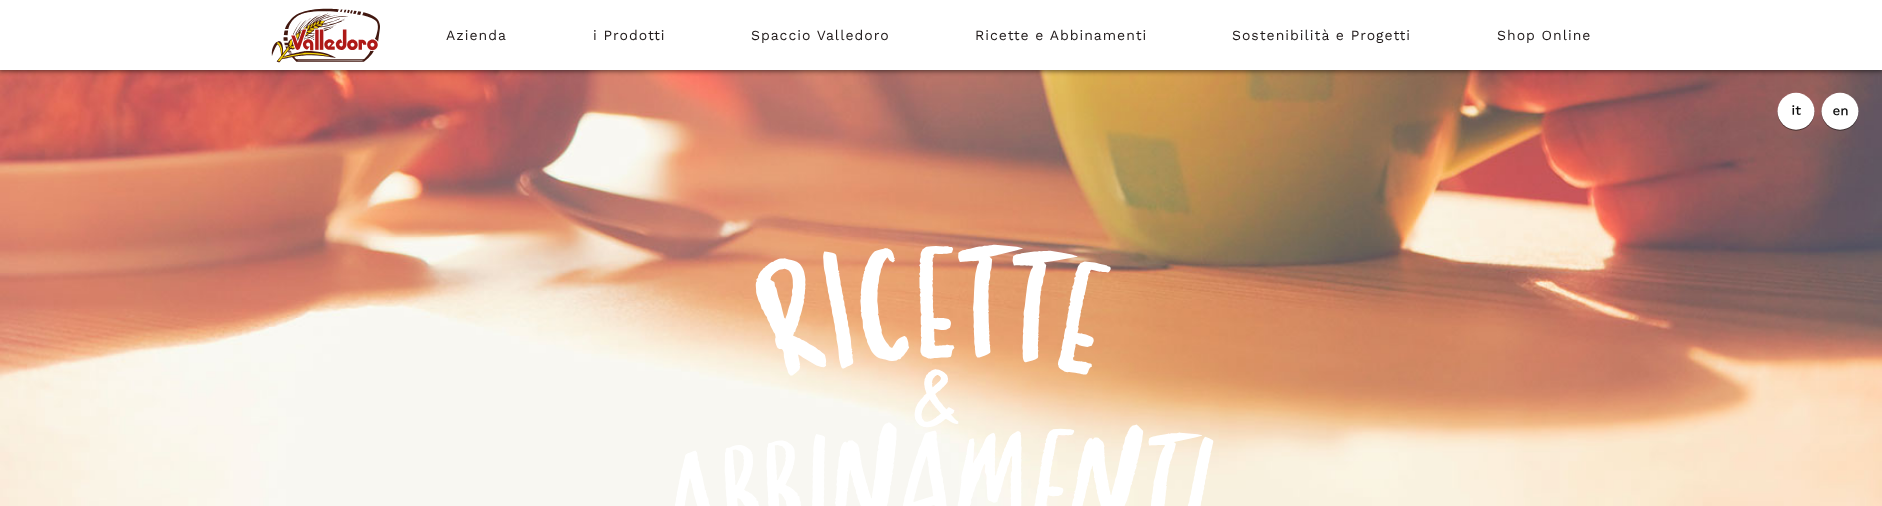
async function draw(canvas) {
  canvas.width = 1882
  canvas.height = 506
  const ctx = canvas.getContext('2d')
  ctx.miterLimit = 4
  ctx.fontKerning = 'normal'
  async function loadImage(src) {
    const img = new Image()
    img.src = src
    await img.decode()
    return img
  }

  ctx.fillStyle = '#fff'
  ctx.fillRect(0, 0, 1882, 506)
  ctx.drawImage(await loadImage('image0.png'), 0, 70, 1882, 436)
  ctx.fillStyle = '#00000099'
  ctx.filter = 'blur(2.5px)'
  ctx.beginPath()
  ctx.rect(-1, -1, 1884, 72)
  ctx.fill()
  ctx.filter = 'none'
  ctx.fillStyle = '#fff'
  ctx.fillRect(0, 0, 1882, 70)
  ctx.drawImage(await loadImage('image1.png'), 271, 8, 109, 55)
  ctx.letterSpacing = '1px'
  ctx.font = '14px Work Sans'
  ctx.fillStyle = '#1f1919'
  ctx.fillText('Azienda', 446, 40)
  ctx.fillText('i Prodotti', 593, 40)
  ctx.fillText('Spaccio Valledoro', 751, 40)
  ctx.fillText('Ricette e Abbinamenti', 975, 40)
  ctx.fillText('Sostenibilità e Progetti', 1232, 40)
  ctx.fillText('Shop Online', 1497, 40)
  ctx.drawImage(await loadImage('image2.png'), 1777, 92, 38, 39)
  ctx.drawImage(await loadImage('image3.png'), 1821, 92, 38, 39)
  ctx.drawImage(await loadImage('image4.png'), 675, 244, 539, 262)
}

draw(document.querySelector('canvas'))
